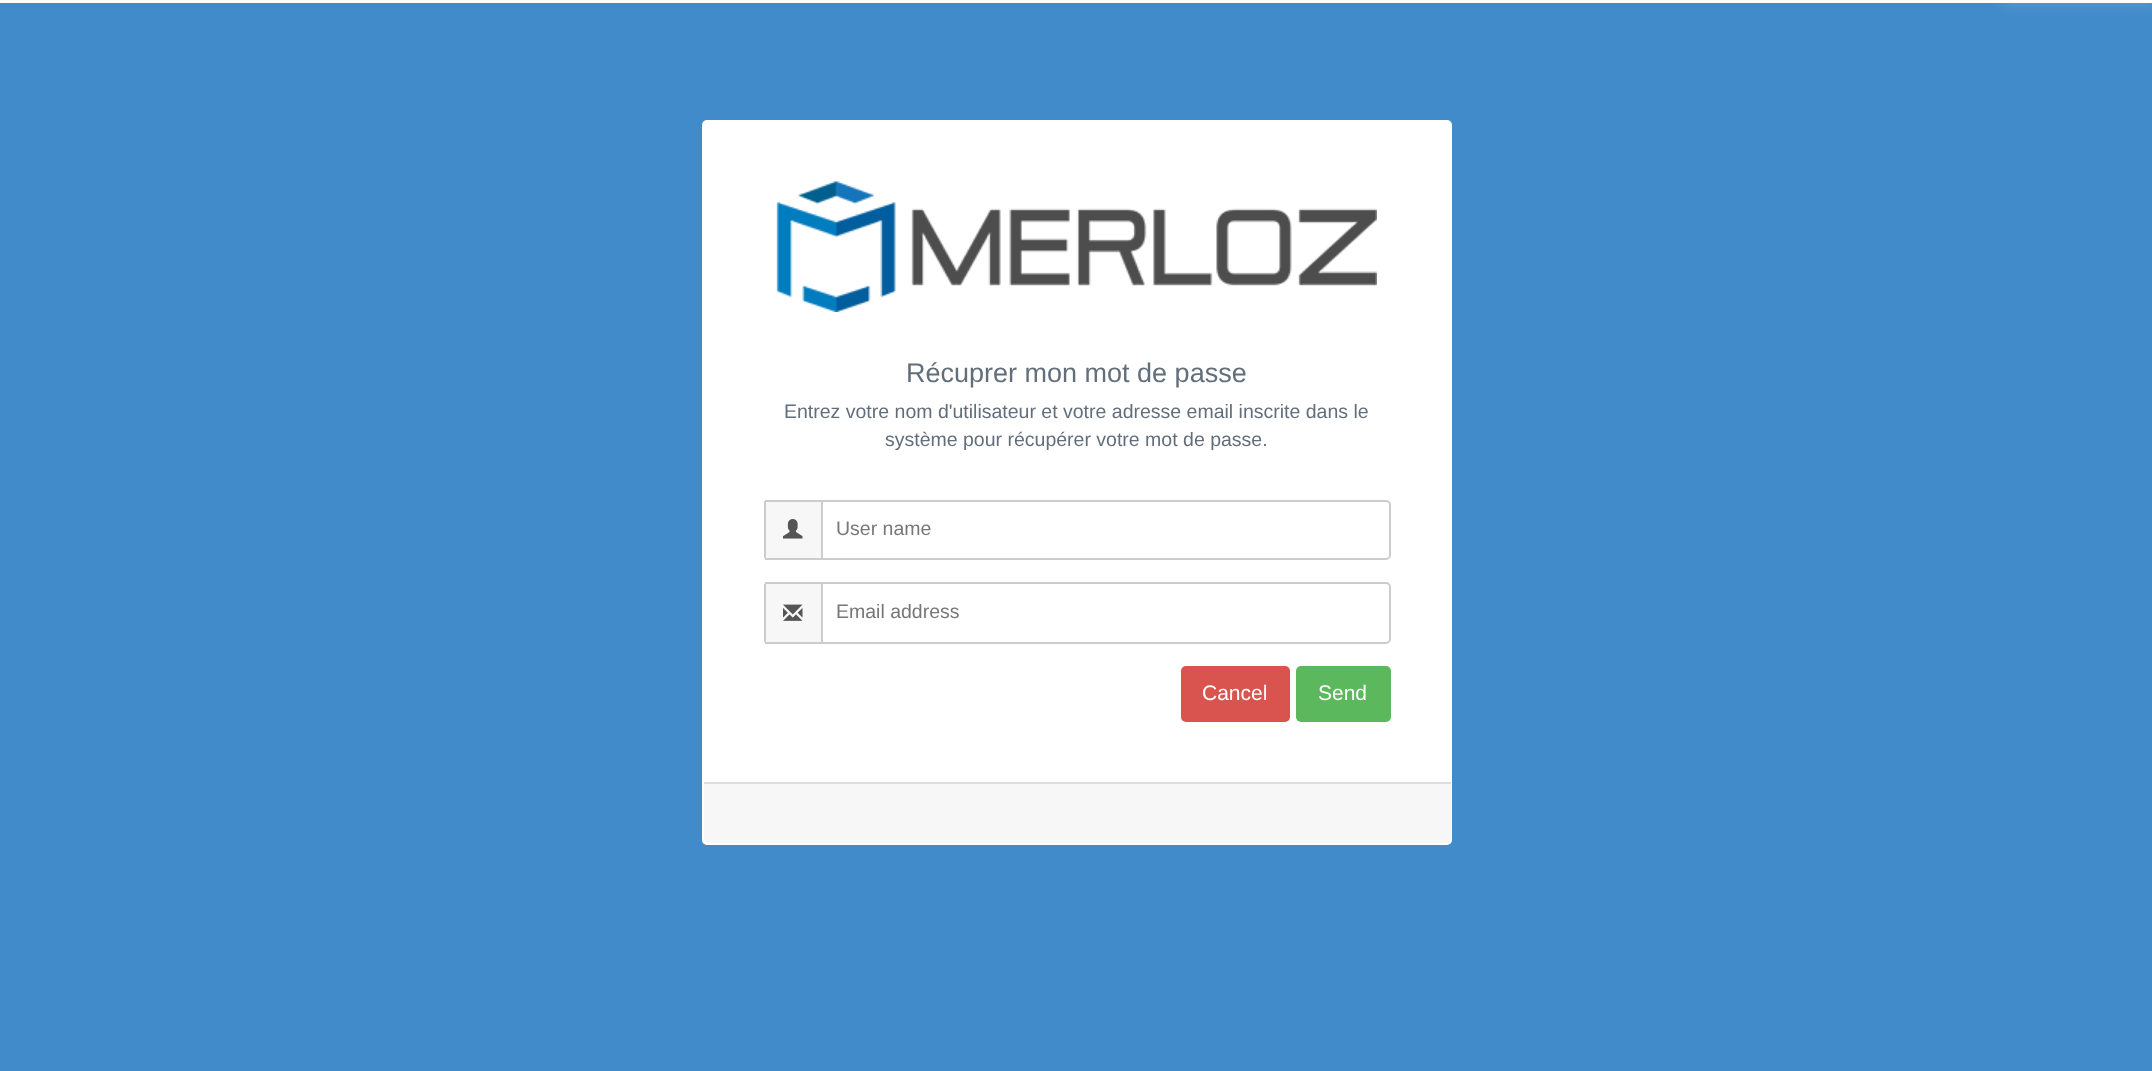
async function draw(canvas) {
  canvas.width = 2152
  canvas.height = 1071
  const ctx = canvas.getContext('2d')
  ctx.miterLimit = 4
  ctx.fontKerning = 'normal'
  async function loadImage(src) {
    const img = new Image()
    img.src = src
    await img.decode()
    return img
  }

  ctx.fillStyle = '#428bca'
  ctx.fillRect(0, 0, 2152, 1071)
  ctx.fillStyle = '#fff'
  ctx.fillRect(0, 0, 2152, 3)
  ctx.filter = 'blur(7.5px)'
  ctx.beginPath()
  ctx.rect(2003, -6, 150, 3)
  ctx.fill()
  ctx.filter = 'none'
  ctx.beginPath()
  ctx.roundRect(702, 120, 750, 725, 5)
  ctx.fill()
  ctx.drawImage(await loadImage('image0.png'), 776, 181, 601, 131)
  ctx.font = '27px Liberation Sans'
  ctx.fillStyle = '#636e7b'
  ctx.fillText('Récuprer mon mot de passe', 906, 382)
  ctx.font = '19.5px Liberation Sans'
  ctx.fillText('Entrez votre nom d\'utilisateur et votre adresse email inscrite dans le', 784, 418)
  ctx.fillText('système pour récupérer votre mot de passe.', 885, 446)
  ctx.fillStyle = '#f7f7f7'
  ctx.beginPath()
  ctx.roundRect(764, 500, 57, 60, [3, 0, 0, 3])
  ctx.fill()
  ctx.fillStyle = '#ccc'
  ctx.fillRect(765, 500, 56, 2)
  ctx.fillRect(765, 558, 56, 2)
  ctx.fillRect(764, 501, 2, 57)
  ctx.drawImage(await loadImage('image1.png'), 783, 519, 20, 20)
  ctx.beginPath()
  ctx.roundRect(822, 501, 568, 58, [0, 4, 4, 0])
  ctx.strokeStyle = '#ccc'
  ctx.lineWidth = 2
  ctx.stroke()
  ctx.fillStyle = '#777'
  ctx.fillText('User name', 836, 535)
  ctx.fillStyle = '#f7f7f7'
  ctx.beginPath()
  ctx.roundRect(764, 582, 57, 62, [3, 0, 0, 3])
  ctx.fill()
  ctx.fillStyle = '#ccc'
  ctx.fillRect(765, 582, 56, 2)
  ctx.fillRect(765, 642, 56, 2)
  ctx.fillRect(764, 584, 2, 58)
  ctx.drawImage(await loadImage('image2.png'), 783, 604, 20, 17)
  ctx.beginPath()
  ctx.roundRect(822, 583, 568, 60, [0, 4, 4, 0])
  ctx.stroke()
  ctx.fillStyle = '#777'
  ctx.fillText('Email address', 836, 618)
  ctx.fillStyle = '#d9534f'
  ctx.beginPath()
  ctx.roundRect(1181, 666, 109, 56, 5)
  ctx.fill()
  ctx.font = '21px Liberation Sans'
  ctx.fillStyle = '#fff'
  ctx.fillText('Cancel', 1202, 700)
  ctx.fillStyle = '#5cb85c'
  ctx.beginPath()
  ctx.roundRect(1296, 666, 95, 56, 5)
  ctx.fill()
  ctx.fillStyle = '#fff'
  ctx.fillText('Send', 1318, 700)
  ctx.fillStyle = '#f7f7f7'
  ctx.beginPath()
  ctx.roundRect(704, 782, 747, 61, [0, 0, 5, 5])
  ctx.fill()
  ctx.fillStyle = '#ddd'
  ctx.fillRect(704, 782, 747, 2)
}

draw(document.querySelector('canvas'))
